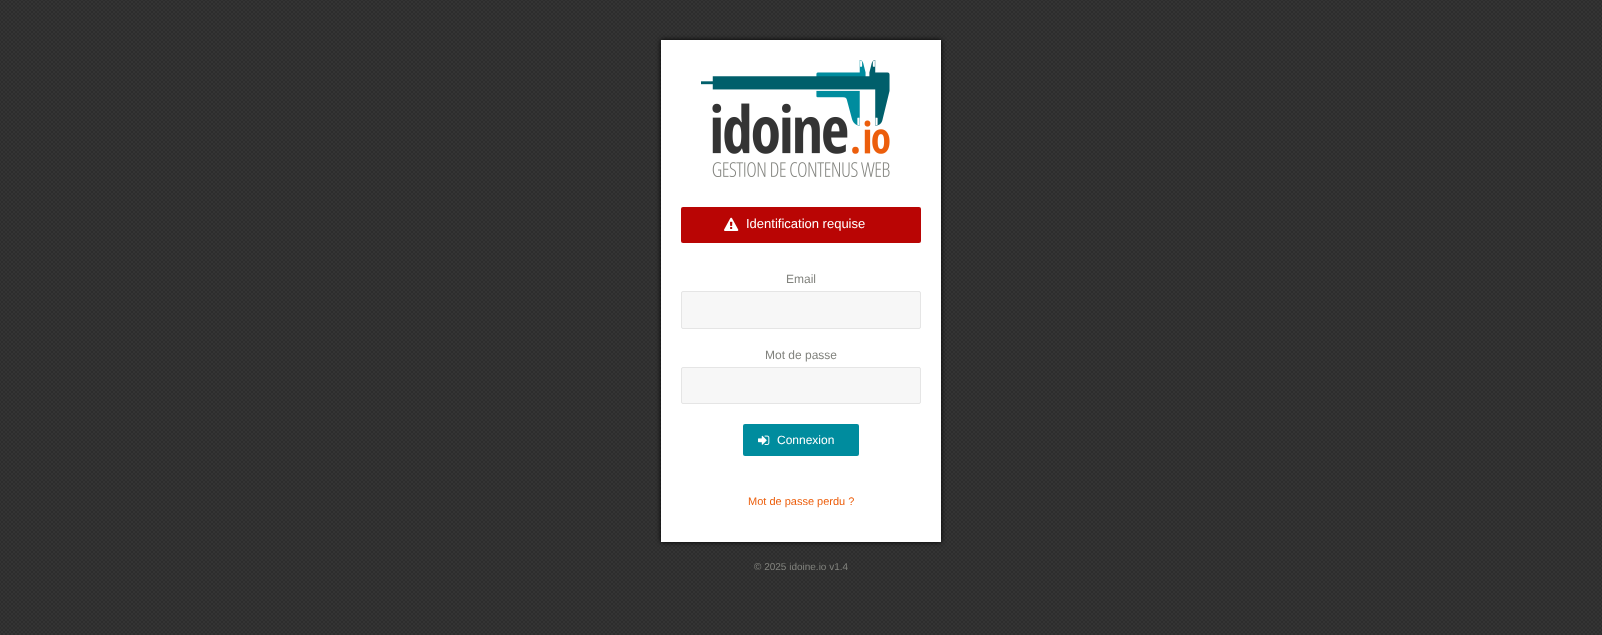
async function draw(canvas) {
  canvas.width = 1602
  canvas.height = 635
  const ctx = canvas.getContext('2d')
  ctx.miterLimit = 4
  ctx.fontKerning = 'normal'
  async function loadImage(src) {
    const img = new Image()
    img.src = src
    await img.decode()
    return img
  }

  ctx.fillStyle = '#343434'
  ctx.fillRect(0, 0, 1602, 635)
  ctx.drawImage(await loadImage('image0.png'), 0, 0, 1602, 635)
  ctx.fillStyle = '#000'
  ctx.filter = 'blur(2.5px)'
  ctx.beginPath()
  ctx.rect(661, 40, 280, 502)
  ctx.fill()
  ctx.filter = 'none'
  ctx.fillStyle = '#fff'
  ctx.fillRect(661, 40, 280, 502)
  ctx.drawImage(await loadImage('image1.png'), 701, 60, 189, 117)
  ctx.fillStyle = '#b90504'
  ctx.beginPath()
  ctx.roundRect(681, 207, 240, 36, 2)
  ctx.fill()
  ctx.drawImage(await loadImage('image2.png'), 724, 217, 15, 14)
  ctx.font = '13px Liberation Sans'
  ctx.fillStyle = '#fff'
  ctx.fillText('Identification requise', 746, 228)
  ctx.font = '12px Liberation Sans'
  ctx.fillStyle = '#82837e'
  ctx.fillText('Email', 786, 283)
  ctx.fillStyle = '#f7f7f7'
  ctx.beginPath()
  ctx.roundRect(681.5, 291.5, 239, 37, 1.5)
  ctx.fill()
  ctx.strokeStyle = '#e5e5e5'
  ctx.stroke()
  ctx.fillStyle = '#82837e'
  ctx.fillText('Mot de passe', 765, 359)
  ctx.fillStyle = '#f7f7f7'
  ctx.beginPath()
  ctx.roundRect(681.5, 367.5, 239, 36, 1.5)
  ctx.fill()
  ctx.stroke()
  ctx.fillStyle = '#008c9e'
  ctx.beginPath()
  ctx.roundRect(743, 424, 116, 32, 2)
  ctx.fill()
  ctx.drawImage(await loadImage('image3.png'), 758, 435, 12, 10)
  ctx.fillStyle = '#fff'
  ctx.fillText('Connexion', 777, 444)
  ctx.font = '11px Liberation Sans'
  ctx.fillStyle = '#ec5e0c'
  ctx.fillText('Mot de passe perdu ?', 748, 505)
  ctx.font = '10px Liberation Sans'
  ctx.fillStyle = '#82837e'
  ctx.fillText('© 2025 idoine.io v1.4', 754, 570)
}

draw(document.querySelector('canvas'))
